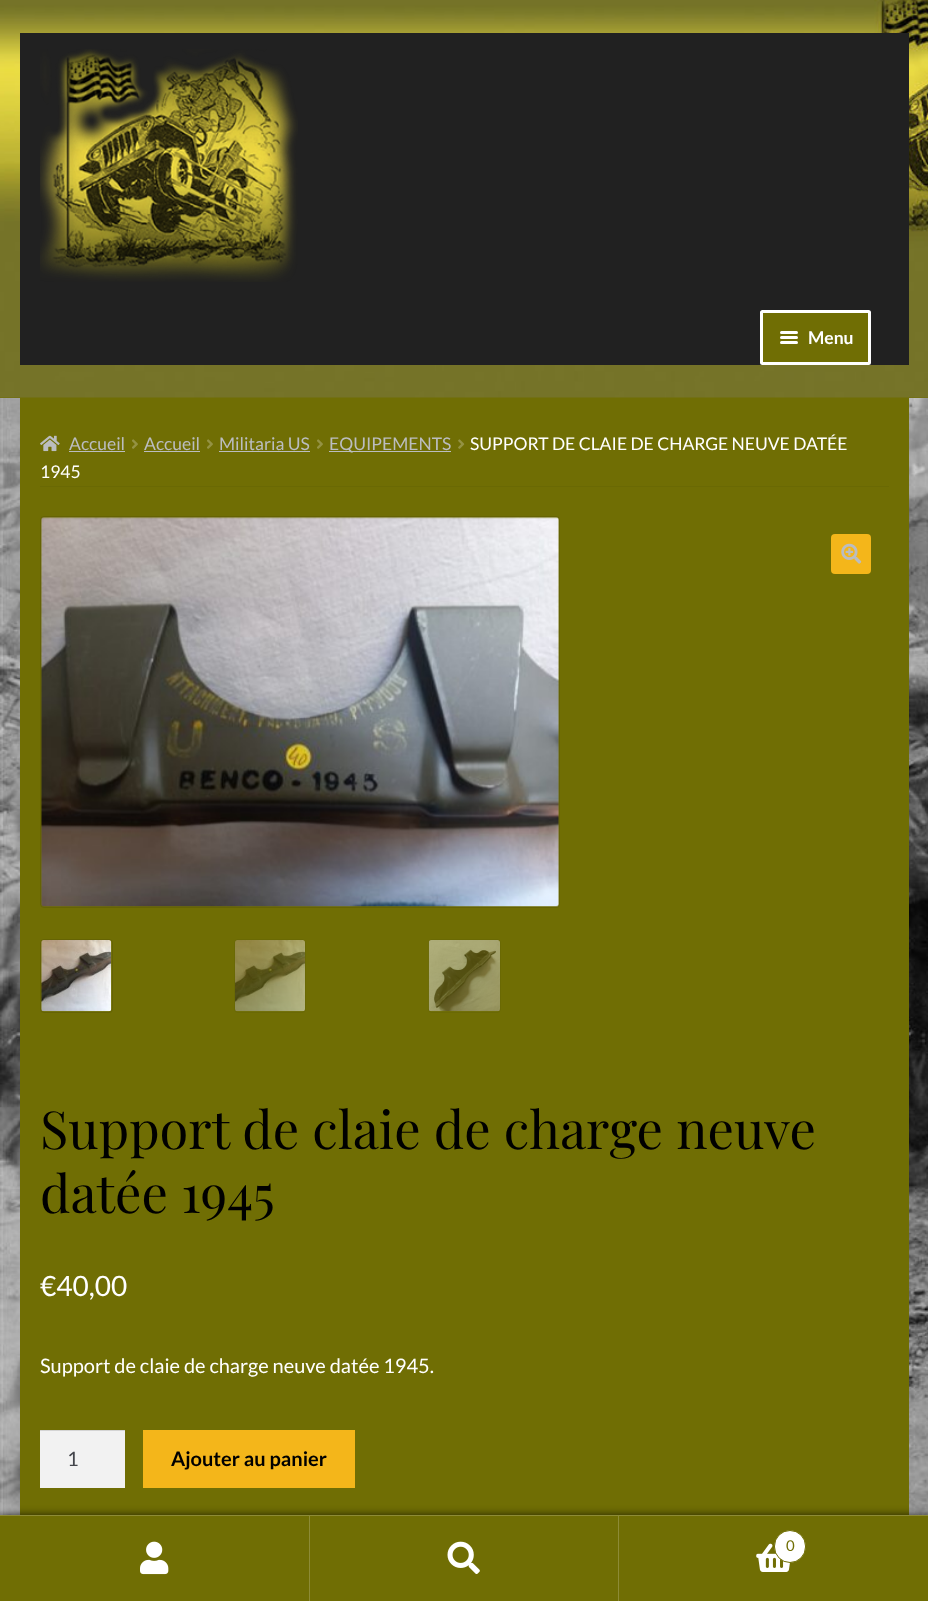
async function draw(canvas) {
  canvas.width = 928
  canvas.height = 1601
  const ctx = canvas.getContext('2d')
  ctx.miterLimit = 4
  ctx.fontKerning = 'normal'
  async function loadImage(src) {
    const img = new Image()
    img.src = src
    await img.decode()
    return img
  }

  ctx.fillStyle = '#fff'
  ctx.fillRect(0, 0, 928, 1601)
  ctx.drawImage(await loadImage('image0.png'), 0, 398, 928, 1117)
  ctx.fillStyle = '#706e04'
  ctx.fillRect(0, 397, 928, 1)
  ctx.drawImage(await loadImage('image1.png'), 0, 0, 928, 398)
  ctx.fillStyle = '#212121'
  ctx.fillRect(20, 33, 889, 332)
  ctx.drawImage(await loadImage('image2.png'), 40, 49, 258, 233)
  ctx.fillStyle = '#706e04'
  ctx.beginPath()
  ctx.roundRect(761.5, 311.5, 108, 52, 1)
  ctx.fill()
  ctx.strokeStyle = '#fff'
  ctx.lineWidth = 3
  ctx.stroke()
  ctx.fillStyle = '#fff'
  ctx.beginPath()
  ctx.roundRect(780, 331, 18, 3, 1.5)
  ctx.fill()
  ctx.beginPath()
  ctx.roundRect(780, 336, 18, 3, 1.5)
  ctx.fill()
  ctx.font = 'bold 17.5px Lato'
  ctx.fillText('Menu', 808, 344)
  ctx.beginPath()
  ctx.roundRect(780, 341, 18, 3, 1.5)
  ctx.fill()
  ctx.fillStyle = '#706e04'
  ctx.fillRect(20, 398, 889, 1117)
  ctx.fillStyle = '#6a6904'
  ctx.fillRect(40, 486, 849, 1)
  ctx.drawImage(await loadImage('image3.png'), 40, 435, 20, 17)
  ctx.font = '17.5px Lato'
  ctx.fillStyle = '#bbbdc0'
  ctx.fillText('Accueil', 69, 450)
  ctx.fillRect(69, 451, 56, 1)
  ctx.drawImage(await loadImage('image4.png'), 132, 439, 6, 10)
  ctx.fillText('Accueil', 144, 450)
  ctx.fillRect(144, 451, 56, 1)
  ctx.drawImage(await loadImage('image4.png'), 207, 439, 6, 10)
  ctx.fillText('Militaria US', 219, 450)
  ctx.fillRect(219, 451, 91, 1)
  ctx.drawImage(await loadImage('image4.png'), 317, 439, 6, 10)
  ctx.fillRect(329, 451, 122, 1)
  ctx.fillText('EQUIPEMENTS', 329, 450)
  ctx.drawImage(await loadImage('image5.png'), 458, 439, 7, 10)
  ctx.fillStyle = '#fff'
  ctx.fillText('SUPPORT DE CLAIE DE CHARGE NEUVE DATÉE', 470, 450)
  ctx.fillText('1945', 40, 478)
  ctx.beginPath()
  ctx.roundRect(40.5, 516.5, 519, 391, 3.5)
  ctx.strokeStyle = '#656304'
  ctx.lineWidth = 1
  ctx.stroke()
  ctx.drawImage(await loadImage('image6.png'), 41, 517, 518, 390)
  ctx.fillStyle = '#f4b61a'
  ctx.beginPath()
  ctx.roundRect(831, 534, 40, 40, 4)
  ctx.fill()
  ctx.drawImage(await loadImage('image7.png'), 841, 543, 21, 21)
  ctx.beginPath()
  ctx.roundRect(40.5, 939.5, 72, 73, 3.5)
  ctx.stroke()
  ctx.drawImage(await loadImage('image8.png'), 41, 940, 71, 72)
  ctx.beginPath()
  ctx.roundRect(234.5, 939.5, 71, 73, 3.5)
  ctx.strokeStyle = '#6a6904'
  ctx.stroke()
  ctx.drawImage(await loadImage('image9.png'), 235, 940, 70, 72)
  ctx.beginPath()
  ctx.roundRect(428.5, 939.5, 72, 73, 3.5)
  ctx.stroke()
  ctx.drawImage(await loadImage('image10.png'), 428, 940, 72, 72)
  ctx.font = '52.4px Playfair Display'
  ctx.fillStyle = '#000'
  ctx.fillText('Support de claie de charge neuve', 40, 1149)
  ctx.fillText('datée 1945', 40, 1213)
  ctx.font = '28px Lato'
  ctx.fillStyle = '#fff'
  ctx.fillText('€40,00', 40, 1296)
  ctx.font = '20px Lato'
  ctx.fillText('Support de claie de charge neuve datée 1945.', 40, 1373)
  ctx.fillStyle = '#f2f2f2'
  ctx.fillRect(40, 1431, 85, 57)
  ctx.fillStyle = '#d4d4d4'
  ctx.fillRect(40, 1430, 85, 1)
  ctx.fillStyle = '#43454b'
  ctx.fillText('1', 67, 1466)
  ctx.fillStyle = '#f4b61a'
  ctx.fillRect(143, 1430, 212, 58)
  ctx.font = 'bold 20px Lato'
  ctx.fillStyle = '#000'
  ctx.fillText('Ajouter au panier', 171, 1466)
  ctx.fillStyle = '#000000b3'
  ctx.filter = 'blur(4px)'
  ctx.beginPath()
  ctx.rect(0, 1515, 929, 86)
  ctx.fill()
  ctx.filter = 'none'
  ctx.fillStyle = '#8d8b36'
  ctx.fillRect(0, 1515, 928, 1)
  ctx.fillStyle = '#706e04'
  ctx.fillRect(0, 1516, 309, 85)
  ctx.fillStyle = '#8d8b36'
  ctx.fillRect(309, 1516, 1, 85)
  ctx.drawImage(await loadImage('image11.png'), 140, 1541, 29, 34)
  ctx.fillStyle = '#706e04'
  ctx.fillRect(310, 1516, 308, 85)
  ctx.fillStyle = '#8d8b36'
  ctx.fillRect(618, 1516, 1, 85)
  ctx.drawImage(await loadImage('image12.png'), 447, 1541, 33, 33)
  ctx.fillStyle = '#706e04'
  ctx.fillRect(619, 1516, 309, 85)
  ctx.drawImage(await loadImage('image13.png'), 756, 1543, 34, 29)
  ctx.fillStyle = '#fff'
  ctx.beginPath()
  ctx.roundRect(774.5, 1530.5, 31, 32, 15.5)
  ctx.fill()
  ctx.strokeStyle = '#706e04'
  ctx.stroke()
  ctx.font = '15px Lato'
  ctx.fillStyle = '#706e04'
  ctx.fillText('0', 786, 1551)
}

draw(document.querySelector('canvas'))
